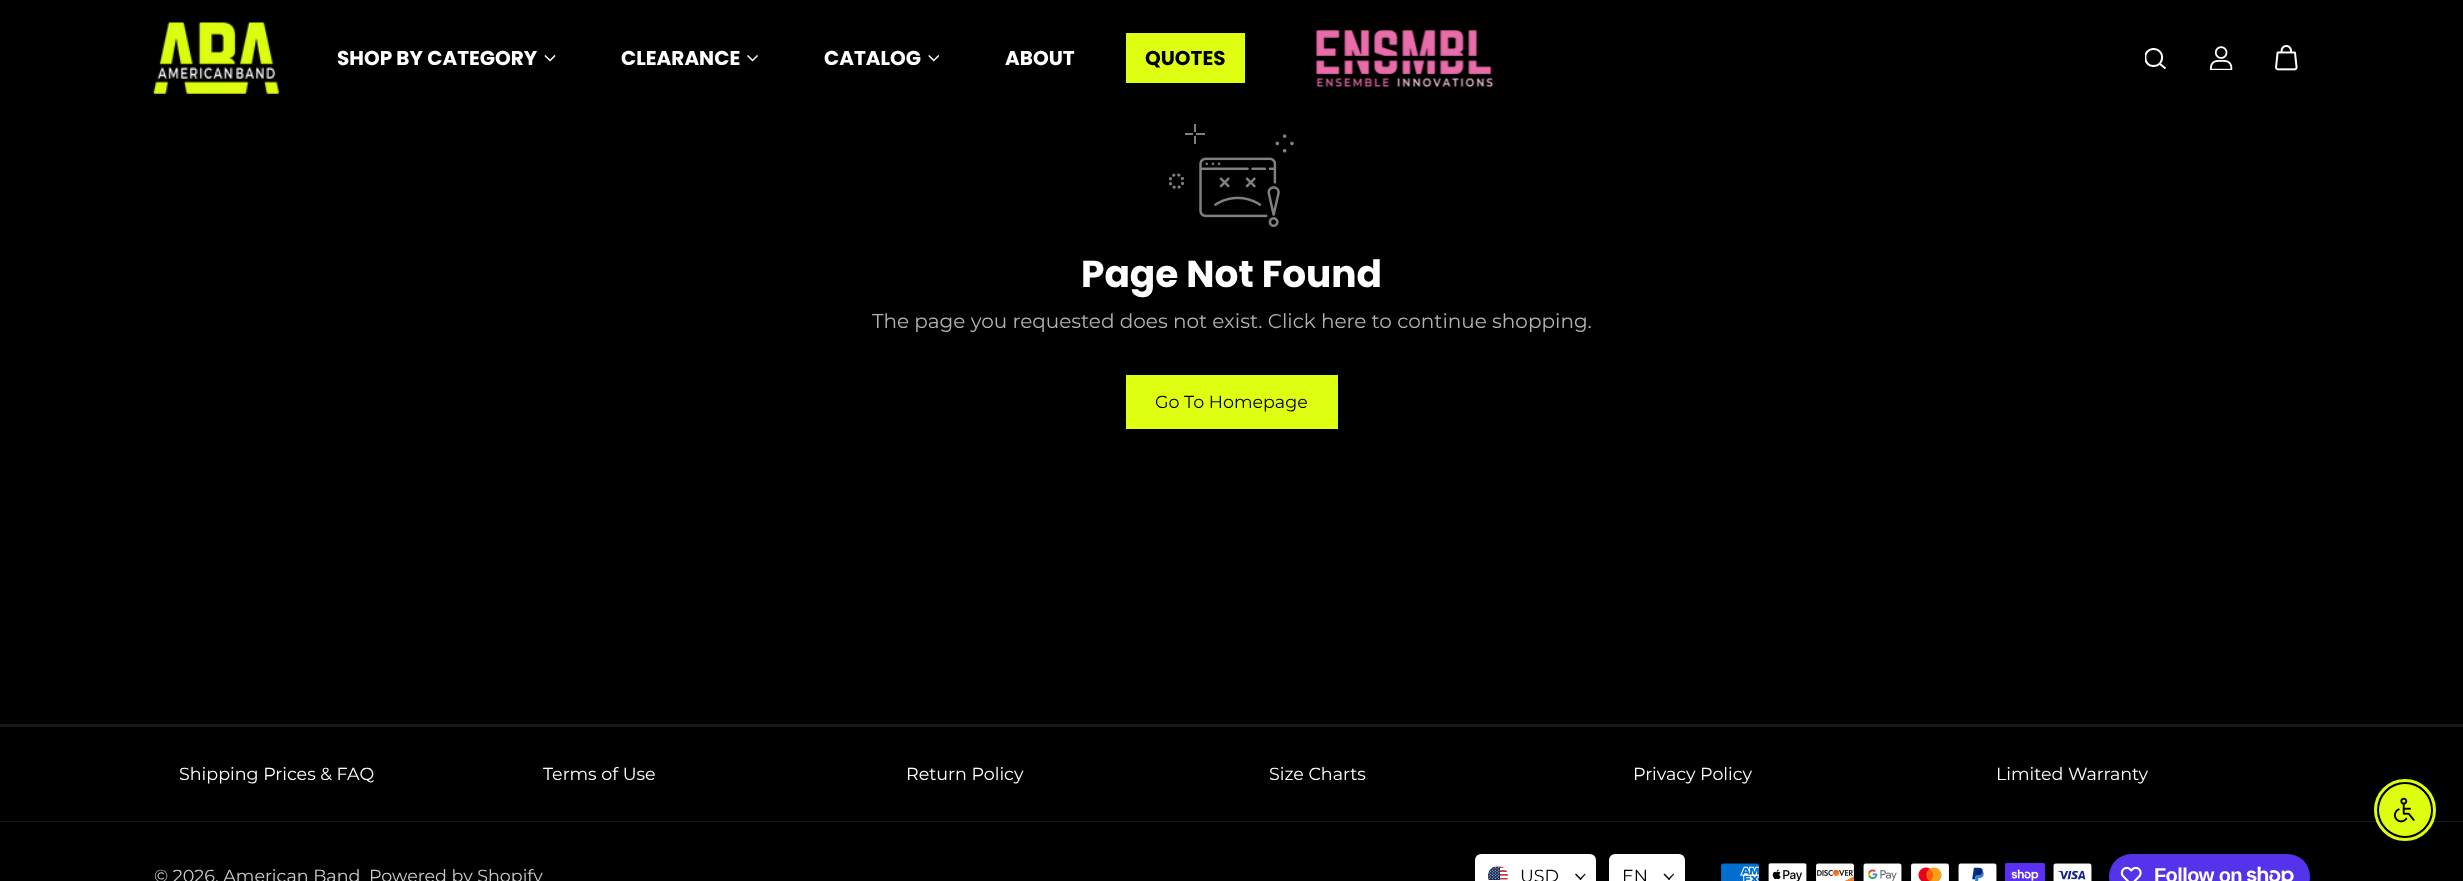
async function draw(canvas) {
  canvas.width = 2463
  canvas.height = 881
  const ctx = canvas.getContext('2d')
  ctx.miterLimit = 4
  ctx.fontKerning = 'normal'
  async function loadImage(src) {
    const img = new Image()
    img.src = src
    await img.decode()
    return img
  }

  ctx.fillStyle = '#000'
  ctx.fillRect(0, 0, 2463, 881)
  ctx.drawImage(await loadImage('image0.png'), 153, 22, 126, 72)
  ctx.font = 'bold 20px Poppins'
  ctx.fillStyle = '#fff'
  ctx.fillText('SHOP BY CATEGORY', 337, 65)
  ctx.drawImage(await loadImage('image1.png'), 544, 55, 12, 7)
  ctx.fillText('CLEARANCE', 621, 65)
  ctx.drawImage(await loadImage('image2.png'), 747, 55, 11, 7)
  ctx.fillText('CATALOG', 824, 65)
  ctx.drawImage(await loadImage('image3.png'), 928, 55, 12, 7)
  ctx.fillText('ABOUT', 1005, 65)
  ctx.fillStyle = '#deff12'
  ctx.fillRect(1126, 33, 119, 50)
  ctx.fillStyle = '#000'
  ctx.fillText('QUOTES', 1145, 65)
  ctx.drawImage(await loadImage('image4.png'), 1315, 30, 179, 58)
  ctx.save()
  ctx.beginPath()
  ctx.rect(2145, 48, 21, 21)
  ctx.clip()
  ctx.beginPath()
  ctx.moveTo(2153.5, 66)
  ctx.bezierCurveTo(2165, 66, 2165, 49, 2153.5, 49)
  ctx.bezierCurveTo(2142.5, 49, 2142.5, 66, 2153.5, 66)
  ctx.closePath()
  ctx.strokeStyle = '#fff'
  ctx.lineWidth = 2.1
  ctx.stroke()
  ctx.restore()
  ctx.beginPath()
  ctx.moveTo(2160, 64)
  ctx.lineTo(2165.5, 68.5)
  ctx.strokeStyle = '#fff'
  ctx.lineWidth = 2.1
  ctx.stroke()
  ctx.drawImage(await loadImage('image5.png'), 2210, 46, 23, 24)
  ctx.drawImage(await loadImage('image6.png'), 2275, 45, 23, 26)
  ctx.drawImage(await loadImage('image7.png'), 1169, 124, 125, 103)
  ctx.font = 'bold 37.5px Poppins'
  ctx.fillStyle = '#fff'
  ctx.fillText('Page Not Found', 1081, 287)
  ctx.font = '20px Montserrat'
  ctx.fillStyle = '#b3b3b3'
  ctx.fillText('The page you requested does not exist. Click here to continue shopping.', 872, 328)
  ctx.fillStyle = '#deff12'
  ctx.fillRect(1126, 375, 212, 54)
  ctx.font = '17.5px Montserrat'
  ctx.fillStyle = '#000'
  ctx.fillText('Go To Homepage', 1155, 408)
  ctx.fillStyle = '#181818'
  ctx.fillRect(0, 724, 2463, 3)
  ctx.fillStyle = '#fff'
  ctx.fillText('Shipping Prices & FAQ', 179, 780)
  ctx.fillText('Terms of Use', 543, 780)
  ctx.fillText('Return Policy', 906, 780)
  ctx.fillText('Size Charts', 1269, 780)
  ctx.fillText('Privacy Policy', 1633, 780)
  ctx.fillText('Limited Warranty', 1996, 780)
  ctx.fillStyle = '#181818'
  ctx.fillRect(0, 821, 2463, 1)
  ctx.fillStyle = '#ccc'
  ctx.fillText('© 2026, American Band', 154, 882)
  ctx.fillText('Powered by Shopify', 369, 882)
  ctx.fillStyle = '#fff'
  ctx.beginPath()
  ctx.roundRect(1475, 854, 121, 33, 6)
  ctx.fill()
  ctx.drawImage(await loadImage('image8.png'), 1488, 866, 20, 14)
  ctx.fillStyle = '#000'
  ctx.fillText('USD', 1520, 882)
  ctx.beginPath()
  ctx.moveTo(1585, 873.5)
  ctx.lineTo(1585.5, 874.5)
  ctx.lineTo(1580.5, 880)
  ctx.lineTo(1579.5, 879)
  ctx.closePath()
  ctx.fill()
  ctx.beginPath()
  ctx.moveTo(1576, 873.5)
  ctx.lineTo(1581.5, 879)
  ctx.lineTo(1580.5, 880)
  ctx.lineTo(1575, 874.5)
  ctx.closePath()
  ctx.fill()
  ctx.fillStyle = '#fff'
  ctx.beginPath()
  ctx.roundRect(1609, 854, 76, 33, 6)
  ctx.fill()
  ctx.fillStyle = '#000'
  ctx.fillText('EN', 1622, 882)
  ctx.beginPath()
  ctx.moveTo(1673.5, 873.5)
  ctx.lineTo(1674, 874.5)
  ctx.lineTo(1669, 880)
  ctx.lineTo(1668, 879)
  ctx.closePath()
  ctx.fill()
  ctx.beginPath()
  ctx.moveTo(1664.5, 873.5)
  ctx.lineTo(1670, 879)
  ctx.lineTo(1669, 880)
  ctx.lineTo(1663.5, 874.5)
  ctx.closePath()
  ctx.fill()
  ctx.drawImage(await loadImage('image9.png'), 1721, 863, 38, 18)
  ctx.drawImage(await loadImage('image10.png'), 1768, 863, 39, 18)
  ctx.drawImage(await loadImage('image11.png'), 1816, 863, 38, 18)
  ctx.drawImage(await loadImage('image12.png'), 1863, 863, 39, 18)
  ctx.drawImage(await loadImage('image13.png'), 1911, 863, 38, 18)
  ctx.drawImage(await loadImage('image14.png'), 1958, 863, 39, 18)
  ctx.drawImage(await loadImage('image15.png'), 2005, 863, 40, 18)
  ctx.drawImage(await loadImage('image16.png'), 2053, 863, 39, 18)
  ctx.fillStyle = '#5433eb'
  ctx.beginPath()
  ctx.roundRect(2109, 854, 201, 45, 22.5)
  ctx.fill()
  ctx.drawImage(await loadImage('image17.png'), 2120, 866, 22, 15)
  ctx.letterSpacing = '-0.6px'
  ctx.font = 'bold 20px Liberation Sans'
  ctx.fillStyle = '#fff'
  ctx.fillText('Follow on', 2154, 882)
  ctx.drawImage(await loadImage('image18.png'), 2246, 866, 48, 15)
  ctx.beginPath()
  ctx.arc(2405, 810, 29.5, 0, 2 * Math.PI)
  ctx.strokeStyle = '#defe0f'
  ctx.lineWidth = 3
  ctx.stroke()
  ctx.fillStyle = '#defe0f'
  ctx.beginPath()
  ctx.arc(2405, 810, 25.5, 0, 2 * Math.PI)
  ctx.fill()
  ctx.lineWidth = 1
  ctx.stroke()
  ctx.drawImage(await loadImage('image19.png'), 2393, 797, 22, 26)
}

draw(document.querySelector('canvas'))
